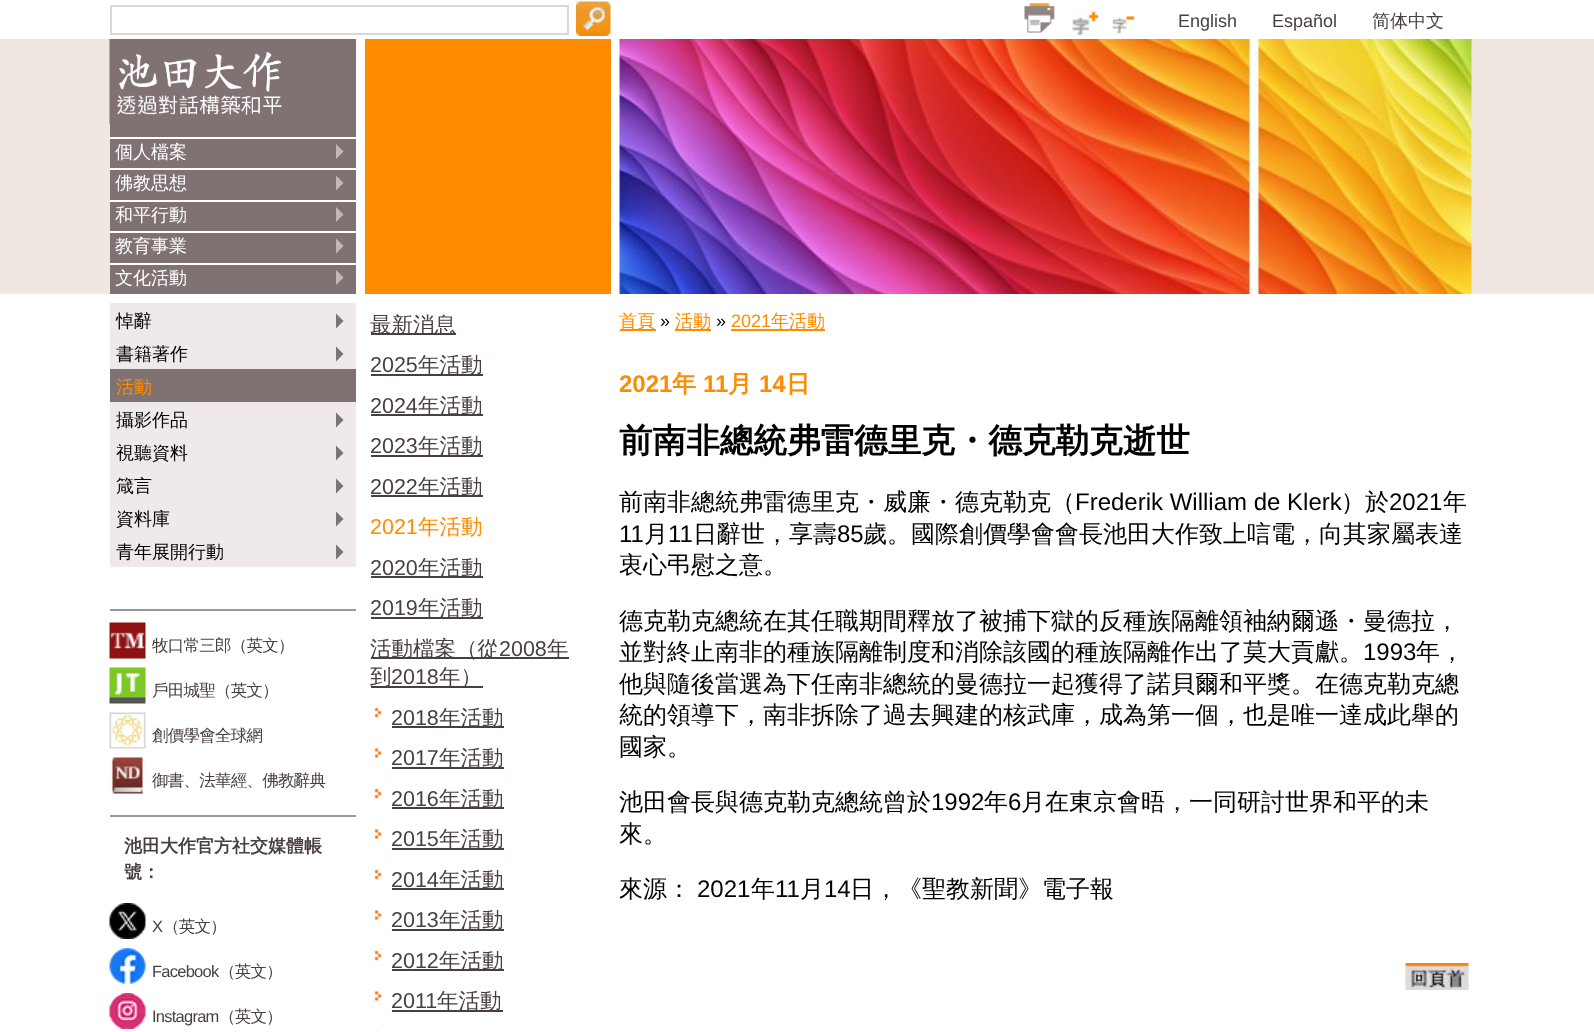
async function draw(canvas) {
  canvas.width = 1594
  canvas.height = 1032
  const ctx = canvas.getContext('2d')
  ctx.miterLimit = 4
  ctx.fontKerning = 'normal'
  async function loadImage(src) {
    const img = new Image()
    img.src = src
    await img.decode()
    return img
  }

  ctx.fillStyle = '#fff'
  ctx.fillRect(0, 0, 1594, 1032)
  ctx.drawImage(await loadImage('image0.png'), 0, 39, 1594, 256)
  ctx.font = '18px Liberation Sans'
  ctx.fillStyle = '#493f3f'
  ctx.fillText('English', 1178, 27)
  ctx.fillText('Español', 1272, 27)
  ctx.font = '500 18px WenQuanYi Zen Hei'
  ctx.fillText('简体中文', 1372, 27)
  ctx.fillStyle = '#807272'
  ctx.fillRect(110, 39, 246, 255)
  ctx.drawImage(await loadImage('image1.png'), 109, 39, 173, 86)
  ctx.fillStyle = '#fff'
  ctx.fillRect(110, 137, 246, 2)
  ctx.fillText('個人檔案', 115, 158)
  ctx.fillStyle = '#c0b9b9'
  ctx.beginPath()
  ctx.moveTo(336, 159)
  ctx.lineTo(336, 144)
  ctx.lineTo(343.5, 151.5)
  ctx.closePath()
  ctx.fill()
  ctx.fillStyle = '#fff'
  ctx.fillRect(110, 168, 246, 2)
  ctx.fillText('佛教思想', 115, 189)
  ctx.fillStyle = '#c0b9b9'
  ctx.beginPath()
  ctx.moveTo(336, 190.5)
  ctx.lineTo(336, 175.5)
  ctx.lineTo(343.5, 183)
  ctx.closePath()
  ctx.fill()
  ctx.fillStyle = '#fff'
  ctx.fillRect(110, 200, 246, 2)
  ctx.fillText('和平行動', 115, 221)
  ctx.fillStyle = '#c0b9b9'
  ctx.beginPath()
  ctx.moveTo(336, 222)
  ctx.lineTo(336, 207)
  ctx.lineTo(343.5, 214.5)
  ctx.closePath()
  ctx.fill()
  ctx.fillStyle = '#fff'
  ctx.fillRect(110, 231, 246, 2)
  ctx.fillText('教育事業', 115, 252)
  ctx.fillStyle = '#c0b9b9'
  ctx.beginPath()
  ctx.moveTo(336, 253.5)
  ctx.lineTo(336, 238.5)
  ctx.lineTo(343.5, 246)
  ctx.closePath()
  ctx.fill()
  ctx.fillStyle = '#fff'
  ctx.fillRect(110, 263, 246, 2)
  ctx.fillText('文化活動', 115, 284)
  ctx.fillStyle = '#c0b9b9'
  ctx.beginPath()
  ctx.moveTo(336, 285)
  ctx.lineTo(336, 270)
  ctx.lineTo(343.5, 277.5)
  ctx.closePath()
  ctx.fill()
  ctx.fillStyle = '#ff8c00'
  ctx.fillRect(365, 39, 246, 255)
  ctx.fillStyle = '#fff'
  ctx.fillRect(356, 39, 9, 255)
  ctx.fillRect(611, 39, 9, 255)
  ctx.drawImage(await loadImage('image2.png'), 619, 39, 853, 255)
  ctx.fillStyle = '#efe9e9'
  ctx.fillRect(110, 303, 246, 264)
  ctx.fillStyle = '#000'
  ctx.fillText('悼辭', 116, 327)
  ctx.fillStyle = '#787575'
  ctx.beginPath()
  ctx.moveTo(336, 328.5)
  ctx.lineTo(336, 313.5)
  ctx.lineTo(343.5, 321)
  ctx.closePath()
  ctx.fill()
  ctx.fillStyle = '#000'
  ctx.fillText('書籍著作', 116, 360)
  ctx.fillStyle = '#787575'
  ctx.beginPath()
  ctx.moveTo(336, 361.5)
  ctx.lineTo(336, 346.5)
  ctx.lineTo(343.5, 354)
  ctx.closePath()
  ctx.fill()
  ctx.fillStyle = '#807272'
  ctx.fillRect(110, 369, 246, 33)
  ctx.fillStyle = '#ff8b00'
  ctx.fillText('活動', 116, 393)
  ctx.fillStyle = '#000'
  ctx.fillText('攝影作品', 116, 426)
  ctx.fillStyle = '#787575'
  ctx.beginPath()
  ctx.moveTo(336, 427.5)
  ctx.lineTo(336, 412.5)
  ctx.lineTo(343.5, 420)
  ctx.closePath()
  ctx.fill()
  ctx.fillStyle = '#000'
  ctx.fillText('視聽資料', 116, 459)
  ctx.fillStyle = '#787575'
  ctx.beginPath()
  ctx.moveTo(336, 460.5)
  ctx.lineTo(336, 445.5)
  ctx.lineTo(343.5, 453)
  ctx.closePath()
  ctx.fill()
  ctx.fillStyle = '#000'
  ctx.fillText('箴言', 116, 492)
  ctx.fillStyle = '#787575'
  ctx.beginPath()
  ctx.moveTo(336, 493.5)
  ctx.lineTo(336, 478.5)
  ctx.lineTo(343.5, 486)
  ctx.closePath()
  ctx.fill()
  ctx.fillStyle = '#000'
  ctx.fillText('資料庫', 116, 525)
  ctx.fillStyle = '#787575'
  ctx.beginPath()
  ctx.moveTo(336, 526.5)
  ctx.lineTo(336, 511.5)
  ctx.lineTo(343.5, 519)
  ctx.closePath()
  ctx.fill()
  ctx.fillStyle = '#000'
  ctx.fillText('青年展開行動', 116, 558)
  ctx.fillStyle = '#787575'
  ctx.beginPath()
  ctx.moveTo(336, 559.5)
  ctx.lineTo(336, 544.5)
  ctx.lineTo(343.5, 552)
  ctx.closePath()
  ctx.fill()
  ctx.fillStyle = '#999'
  ctx.fillRect(110, 609, 246, 2)
  ctx.drawImage(await loadImage('image3.png'), 109, 622, 37, 37)
  ctx.letterSpacing = '-0.75px'
  ctx.font = '500 16.5px WenQuanYi Zen Hei'
  ctx.fillStyle = '#493f3f'
  ctx.fillText('牧口常三郎（英文）', 152, 651)
  ctx.drawImage(await loadImage('image4.png'), 109, 667, 37, 37)
  ctx.fillText('戶田城聖（英文）', 152, 696)
  ctx.drawImage(await loadImage('image5.png'), 109, 712, 37, 37)
  ctx.fillText('創價學會全球網', 152, 741)
  ctx.drawImage(await loadImage('image6.png'), 109, 757, 37, 37)
  ctx.fillText('御書、法華經、佛教辭典', 152, 786)
  ctx.fillStyle = '#999'
  ctx.fillRect(110, 815, 246, 2)
  ctx.letterSpacing = '0px'
  ctx.font = 'bold 18px WenQuanYi Zen Hei'
  ctx.fillStyle = '#493f3f'
  ctx.fillText('池田大作官方社交媒體帳', 124, 852)
  ctx.fillText('號：', 124, 878)
  ctx.drawImage(await loadImage('image7.png'), 109, 903, 37, 36)
  ctx.letterSpacing = '-0.75px'
  ctx.font = '16.5px Liberation Sans'
  ctx.fillText('X', 152, 932)
  ctx.font = '500 16.5px WenQuanYi Zen Hei'
  ctx.fillText('（英文）', 163, 932)
  ctx.drawImage(await loadImage('image8.png'), 109, 948, 37, 36)
  ctx.font = '16.5px Liberation Sans'
  ctx.fillText('Facebook', 152, 977)
  ctx.font = '500 16.5px WenQuanYi Zen Hei'
  ctx.fillText('（英文）', 219, 977)
  ctx.drawImage(await loadImage('image9.png'), 109, 993, 37, 36)
  ctx.font = '16.5px Liberation Sans'
  ctx.fillText('Instagram', 152, 1022)
  ctx.font = '500 16.5px WenQuanYi Zen Hei'
  ctx.fillText('（英文）', 219, 1022)
  ctx.fillRect(371, 333, 85, 2)
  ctx.letterSpacing = '0px'
  ctx.font = '500 21.5px WenQuanYi Zen Hei'
  ctx.fillText('最新消息', 370, 332)
  ctx.font = '21.5px Liberation Sans'
  ctx.fillText('2025', 370, 372)
  ctx.fillRect(371, 374, 112, 2)
  ctx.font = '500 21.5px WenQuanYi Zen Hei'
  ctx.fillText('年活動', 418, 372)
  ctx.font = '21.5px Liberation Sans'
  ctx.fillText('2024', 370, 413)
  ctx.fillRect(371, 414, 112, 2)
  ctx.font = '500 21.5px WenQuanYi Zen Hei'
  ctx.fillText('年活動', 418, 413)
  ctx.font = '21.5px Liberation Sans'
  ctx.fillText('2023', 370, 453)
  ctx.fillRect(371, 455, 112, 2)
  ctx.font = '500 21.5px WenQuanYi Zen Hei'
  ctx.fillText('年活動', 418, 453)
  ctx.font = '21.5px Liberation Sans'
  ctx.fillText('2022', 370, 494)
  ctx.fillRect(371, 495, 112, 2)
  ctx.font = '500 21.5px WenQuanYi Zen Hei'
  ctx.fillText('年活動', 418, 494)
  ctx.font = '21.5px Liberation Sans'
  ctx.fillStyle = '#ff8b00'
  ctx.fillText('2021', 370, 534)
  ctx.font = '500 21.5px WenQuanYi Zen Hei'
  ctx.fillText('年活動', 418, 534)
  ctx.font = '21.5px Liberation Sans'
  ctx.fillStyle = '#493f3f'
  ctx.fillText('2020', 370, 575)
  ctx.fillRect(371, 576, 112, 2)
  ctx.font = '500 21.5px WenQuanYi Zen Hei'
  ctx.fillText('年活動', 418, 575)
  ctx.font = '21.5px Liberation Sans'
  ctx.fillText('2019', 370, 615)
  ctx.fillRect(371, 617, 112, 2)
  ctx.font = '500 21.5px WenQuanYi Zen Hei'
  ctx.fillText('年活動', 418, 615)
  ctx.fillRect(371, 657, 198, 2)
  ctx.fillText('活動檔案（從', 370, 656)
  ctx.font = '21.5px Liberation Sans'
  ctx.fillText('2008', 499, 656)
  ctx.font = '500 21.5px WenQuanYi Zen Hei'
  ctx.fillText('年', 547, 656)
  ctx.fillRect(371, 686, 112, 2)
  ctx.fillText('到', 370, 684)
  ctx.font = '21.5px Liberation Sans'
  ctx.fillText('2018', 391, 684)
  ctx.font = '500 21.5px WenQuanYi Zen Hei'
  ctx.fillText('年）', 439, 684)
  ctx.drawImage(await loadImage('image10.png'), 374, 707, 8, 11)
  ctx.font = '21.5px Liberation Sans'
  ctx.fillText('2018', 391, 725)
  ctx.fillRect(392, 726, 112, 2)
  ctx.font = '500 21.5px WenQuanYi Zen Hei'
  ctx.fillText('年活動', 439, 725)
  ctx.drawImage(await loadImage('image11.png'), 374, 748, 8, 10)
  ctx.font = '21.5px Liberation Sans'
  ctx.fillText('2017', 391, 765)
  ctx.fillRect(392, 767, 112, 2)
  ctx.font = '500 21.5px WenQuanYi Zen Hei'
  ctx.fillText('年活動', 439, 765)
  ctx.drawImage(await loadImage('image10.png'), 374, 788, 8, 11)
  ctx.font = '21.5px Liberation Sans'
  ctx.fillText('2016', 391, 806)
  ctx.fillRect(392, 807, 112, 2)
  ctx.font = '500 21.5px WenQuanYi Zen Hei'
  ctx.fillText('年活動', 439, 806)
  ctx.drawImage(await loadImage('image11.png'), 374, 829, 8, 10)
  ctx.font = '21.5px Liberation Sans'
  ctx.fillText('2015', 391, 846)
  ctx.fillRect(392, 848, 112, 2)
  ctx.font = '500 21.5px WenQuanYi Zen Hei'
  ctx.fillText('年活動', 439, 846)
  ctx.drawImage(await loadImage('image10.png'), 374, 869, 8, 11)
  ctx.font = '21.5px Liberation Sans'
  ctx.fillText('2014', 391, 887)
  ctx.fillRect(392, 888, 112, 2)
  ctx.font = '500 21.5px WenQuanYi Zen Hei'
  ctx.fillText('年活動', 439, 887)
  ctx.drawImage(await loadImage('image11.png'), 374, 910, 8, 10)
  ctx.font = '21.5px Liberation Sans'
  ctx.fillText('2013', 391, 927)
  ctx.fillRect(392, 929, 112, 2)
  ctx.font = '500 21.5px WenQuanYi Zen Hei'
  ctx.fillText('年活動', 439, 927)
  ctx.drawImage(await loadImage('image10.png'), 374, 950, 8, 11)
  ctx.font = '21.5px Liberation Sans'
  ctx.fillText('2012', 391, 968)
  ctx.fillRect(392, 969, 112, 2)
  ctx.font = '500 21.5px WenQuanYi Zen Hei'
  ctx.fillText('年活動', 439, 968)
  ctx.drawImage(await loadImage('image11.png'), 374, 991, 8, 10)
  ctx.font = '21.5px Liberation Sans'
  ctx.fillText('2011', 391, 1008)
  ctx.fillRect(392, 1010, 111, 2)
  ctx.font = '500 21.5px WenQuanYi Zen Hei'
  ctx.fillText('年活動', 437, 1008)
  ctx.drawImage(await loadImage('image12.png'), 375, 1031, 4, 1)
  ctx.strokeStyle = '#d9d9d9'
  ctx.lineWidth = 2
  ctx.strokeRect(111, 6, 457, 28)
  ctx.drawImage(await loadImage('image13.png'), 576, 1, 35, 35)
  ctx.drawImage(await loadImage('image14.png'), 1024, 3, 31, 30)
  ctx.drawImage(await loadImage('image15.png'), 1072, 9, 27, 27)
  ctx.drawImage(await loadImage('image16.png'), 1111, 16, 24, 18)
  ctx.fillStyle = '#ff8c00'
  ctx.fillRect(620, 329, 36, 2)
  ctx.font = '500 18px WenQuanYi Zen Hei'
  ctx.fillStyle = '#ff8b00'
  ctx.fillText('首頁', 619, 327)
  ctx.font = '18px Liberation Sans'
  ctx.fillStyle = '#000'
  ctx.fillText('»', 660, 327)
  ctx.fillStyle = '#ff8c00'
  ctx.fillRect(675, 329, 36, 2)
  ctx.font = '500 18px WenQuanYi Zen Hei'
  ctx.fillStyle = '#ff8b00'
  ctx.fillText('活動', 675, 327)
  ctx.font = '18px Liberation Sans'
  ctx.fillStyle = '#000'
  ctx.fillText('»', 716, 327)
  ctx.fillStyle = '#ff8b00'
  ctx.fillText('2021', 731, 327)
  ctx.fillStyle = '#ff8c00'
  ctx.fillRect(731, 329, 94, 2)
  ctx.font = '500 18px WenQuanYi Zen Hei'
  ctx.fillStyle = '#ff8b00'
  ctx.fillText('年活動', 771, 327)
  ctx.font = 'bold 24px Liberation Sans'
  ctx.fillText('2021', 619, 392)
  ctx.font = 'bold 24px WenQuanYi Zen Hei'
  ctx.fillText('年', 672, 392)
  ctx.font = 'bold 24px Liberation Sans'
  ctx.fillText('11', 703, 392)
  ctx.font = 'bold 24px WenQuanYi Zen Hei'
  ctx.fillText('月', 728, 392)
  ctx.font = 'bold 24px Liberation Sans'
  ctx.fillText('14', 759, 392)
  ctx.font = 'bold 24px WenQuanYi Zen Hei'
  ctx.fillText('日', 786, 392)
  ctx.font = 'bold 33.6px WenQuanYi Zen Hei'
  ctx.fillStyle = '#000'
  ctx.fillText('前南非總統弗雷德里克・德克勒克逝世', 619, 452)
  ctx.font = '500 24px WenQuanYi Zen Hei'
  ctx.fillText('前南非總統弗雷德里克・威廉・德克勒克（', 619, 510)
  ctx.font = '24px Liberation Sans'
  ctx.fillText('Frederik William de Klerk', 1075, 510)
  ctx.font = '500 24px WenQuanYi Zen Hei'
  ctx.fillText('）於', 1341, 510)
  ctx.font = '24px Liberation Sans'
  ctx.fillText('2021', 1389, 510)
  ctx.font = '500 24px WenQuanYi Zen Hei'
  ctx.fillText('年', 1443, 510)
  ctx.font = '24px Liberation Sans'
  ctx.fillText('11', 619, 542)
  ctx.font = '500 24px WenQuanYi Zen Hei'
  ctx.fillText('月', 644, 542)
  ctx.font = '24px Liberation Sans'
  ctx.fillText('11', 668, 542)
  ctx.font = '500 24px WenQuanYi Zen Hei'
  ctx.fillText('日辭世，享壽', 693, 542)
  ctx.font = '24px Liberation Sans'
  ctx.fillText('85', 837, 542)
  ctx.font = '500 24px WenQuanYi Zen Hei'
  ctx.fillText('歲。國際創價學會會長池田大作致上唁電，向其家屬表達', 863, 542)
  ctx.fillText('衷心弔慰之意。', 619, 573)
  ctx.fillText('德克勒克總統在其任職期間釋放了被捕下獄的反種族隔離領袖納爾遜・曼德拉，', 619, 629)
  ctx.fillText('並對終止南非的種族隔離制度和消除該國的種族隔離作出了莫大貢獻。', 619, 660)
  ctx.font = '24px Liberation Sans'
  ctx.fillText('1993', 1363, 660)
  ctx.font = '500 24px WenQuanYi Zen Hei'
  ctx.fillText('年，', 1416, 660)
  ctx.fillText('他與隨後當選為下任南非總統的曼德拉一起獲得了諾貝爾和平獎。在德克勒克總', 619, 692)
  ctx.fillText('統的領導下，南非拆除了過去興建的核武庫，成為第一個，也是唯一達成此舉的', 619, 723)
  ctx.fillText('國家。', 619, 755)
  ctx.fillText('池田會長與德克勒克總統曾於', 619, 810)
  ctx.font = '24px Liberation Sans'
  ctx.fillText('1992', 931, 810)
  ctx.font = '500 24px WenQuanYi Zen Hei'
  ctx.fillText('年', 984, 810)
  ctx.font = '24px Liberation Sans'
  ctx.fillText('6', 1008, 810)
  ctx.font = '500 24px WenQuanYi Zen Hei'
  ctx.fillText('月在東京會晤，一同研討世界和平的未', 1021, 810)
  ctx.fillText('來。', 619, 842)
  ctx.fillText('來源：', 619, 897)
  ctx.font = '24px Liberation Sans'
  ctx.fillText('2021', 697, 897)
  ctx.font = '500 24px WenQuanYi Zen Hei'
  ctx.fillText('年', 751, 897)
  ctx.font = '24px Liberation Sans'
  ctx.fillText('11', 775, 897)
  ctx.font = '500 24px WenQuanYi Zen Hei'
  ctx.fillText('月', 800, 897)
  ctx.font = '24px Liberation Sans'
  ctx.fillText('14', 824, 897)
  ctx.font = '500 24px WenQuanYi Zen Hei'
  ctx.fillText('日，《聖教新聞》電子報', 850, 897)
  ctx.drawImage(await loadImage('image17.png'), 1405, 963, 64, 27)
}

draw(document.querySelector('canvas'))
